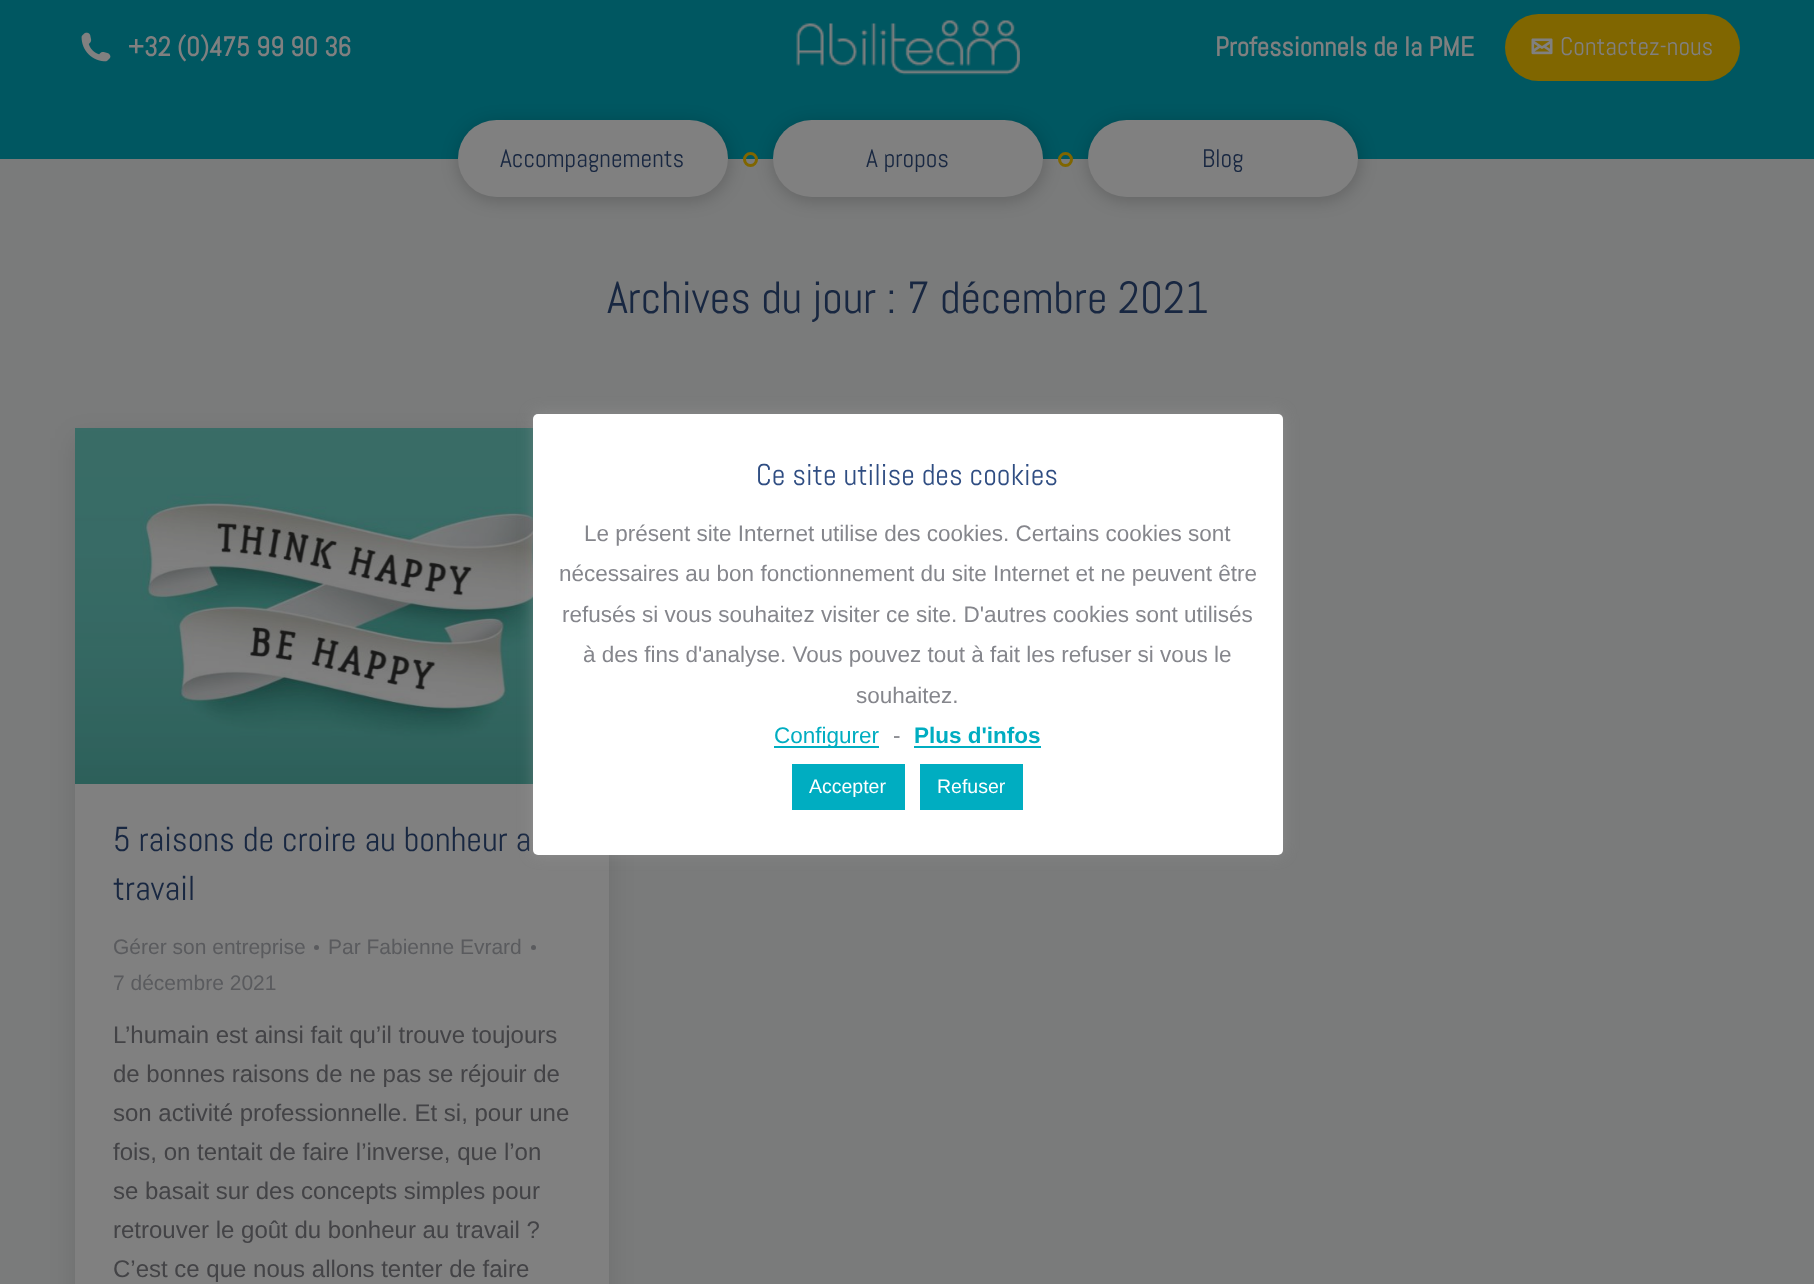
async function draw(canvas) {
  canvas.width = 1814
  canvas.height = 1284
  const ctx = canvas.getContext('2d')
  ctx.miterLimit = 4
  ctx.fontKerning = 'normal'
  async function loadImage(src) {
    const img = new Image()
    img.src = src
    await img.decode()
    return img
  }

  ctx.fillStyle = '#7a7b7b'
  ctx.fillRect(0, 0, 1814, 1284)
  ctx.fillStyle = '#005761'
  ctx.fillRect(0, 0, 1814, 159)
  ctx.drawImage(await loadImage('image0.png'), 81, 32, 30, 30)
  ctx.font = 'bold 27px Abel'
  ctx.fillStyle = '#808080'
  ctx.fillText('+32 (0)475 99 90 36', 128, 56)
  ctx.drawImage(await loadImage('image1.png'), 796, 20, 224, 55)
  ctx.fillText('Professionnels de la PME', 1215, 56)
  ctx.fillStyle = '#806600'
  ctx.beginPath()
  ctx.roundRect(1505, 14, 235, 67, 33.5)
  ctx.fill()
  ctx.drawImage(await loadImage('image2.png'), 1531, 38, 22, 17)
  ctx.font = '25.5px Abel'
  ctx.fillStyle = '#808080'
  ctx.fillText('Contactez-nous', 1560, 55)
  ctx.fillStyle = '#00000033'
  ctx.filter = 'blur(9px)'
  ctx.beginPath()
  ctx.roundRect(459, 123, 270, 77, 38.5)
  ctx.fill()
  ctx.filter = 'none'
  ctx.fillStyle = '#808080'
  ctx.beginPath()
  ctx.roundRect(458, 120, 270, 77, 38.5)
  ctx.fill()
  ctx.fillStyle = '#182741'
  ctx.fillText('Accompagnements', 500, 167)
  ctx.beginPath()
  ctx.arc(750.5, 159.5, 6, 0, 2 * Math.PI)
  ctx.strokeStyle = '#806600'
  ctx.lineWidth = 3
  ctx.stroke()
  ctx.fillStyle = '#00000033'
  ctx.filter = 'blur(9px)'
  ctx.beginPath()
  ctx.roundRect(774, 123, 270, 77, 38.5)
  ctx.fill()
  ctx.filter = 'none'
  ctx.fillStyle = '#808080'
  ctx.beginPath()
  ctx.roundRect(773, 120, 270, 77, 38.5)
  ctx.fill()
  ctx.fillStyle = '#182741'
  ctx.fillText('A propos', 866, 167)
  ctx.beginPath()
  ctx.arc(1065.5, 159.5, 6, 0, 2 * Math.PI)
  ctx.stroke()
  ctx.fillStyle = '#00000033'
  ctx.filter = 'blur(9px)'
  ctx.beginPath()
  ctx.roundRect(1089, 123, 270, 77, 38.5)
  ctx.fill()
  ctx.filter = 'none'
  ctx.fillStyle = '#808080'
  ctx.beginPath()
  ctx.roundRect(1088, 120, 270, 77, 38.5)
  ctx.fill()
  ctx.fillStyle = '#182741'
  ctx.fillText('Blog', 1202, 167)
  ctx.font = '45px Abel'
  ctx.fillText('Archives du jour : 7 décembre 2021', 607, 313)
  ctx.fillStyle = '#0000001a'
  ctx.filter = 'blur(13.5px)'
  ctx.beginPath()
  ctx.rect(75, 438, 534, 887)
  ctx.fill()
  ctx.filter = 'none'
  ctx.fillStyle = '#808080'
  ctx.fillRect(75, 784, 534, 500)
  ctx.drawImage(await loadImage('image3.png'), 75, 428, 458, 356)
  ctx.font = '34.5px Abel'
  ctx.fillStyle = '#182741'
  ctx.fillText('5 raisons de croire au bonheur a', 113, 851)
  ctx.fillText('travail', 113, 900)
  ctx.font = '21px Liberation Sans'
  ctx.fillStyle = '#5a5b5e'
  ctx.fillText('Gérer son entreprise', 113, 954)
  ctx.beginPath()
  ctx.arc(316.5, 947.5, 2.5, 0, 2 * Math.PI)
  ctx.fill()
  ctx.fillText('Par Fabienne Evrard', 328, 954)
  ctx.beginPath()
  ctx.arc(533.5, 947.5, 2.5, 0, 2 * Math.PI)
  ctx.fill()
  ctx.fillText('7 décembre 2021', 113, 990)
  ctx.font = '24px Liberation Sans'
  ctx.fillStyle = '#434346'
  ctx.fillText('L’humain est ainsi fait qu’il trouve toujours', 113, 1043)
  ctx.fillText('de bonnes raisons de ne pas se réjouir de', 113, 1082)
  ctx.fillText('son activité professionnelle. Et si, pour une', 113, 1121)
  ctx.fillText('fois, on tentait de faire l’inverse, que l’on', 113, 1160)
  ctx.fillText('se basait sur des concepts simples pour', 113, 1199)
  ctx.fillText('retrouver le goût du bonheur au travail ?', 113, 1238)
  ctx.fillText('C’est ce que nous allons tenter de faire', 113, 1277)
  ctx.fillStyle = '#acabab4d'
  ctx.filter = 'blur(7.5px)'
  ctx.beginPath()
  ctx.roundRect(533, 413, 750, 441, 5)
  ctx.fill()
  ctx.filter = 'none'
  ctx.fillStyle = '#fff'
  ctx.beginPath()
  ctx.roundRect(533, 414, 750, 441, 5)
  ctx.fill()
  ctx.font = '30px Abel'
  ctx.fillStyle = '#2f4d82'
  ctx.fillText('Ce site utilise des cookies', 756, 485)
  ctx.font = '22.5px Liberation Sans'
  ctx.fillStyle = '#85868c'
  ctx.fillText('Le présent site Internet utilise des cookies. Certains cookies sont', 584, 541)
  ctx.fillText('nécessaires au bon fonctionnement du site Internet et ne peuvent être', 559, 581)
  ctx.fillText('refusés si vous souhaitez visiter ce site. D\'autres cookies sont utilisés', 562, 622)
  ctx.fillText('à des fins d\'analyse. Vous pouvez tout à fait les refuser si vous le', 583, 662)
  ctx.fillText('souhaitez.', 856, 703)
  ctx.fillStyle = '#00adc1'
  ctx.fillRect(774, 746, 105, 2)
  ctx.fillText('Configurer', 774, 743)
  ctx.fillStyle = '#85868c'
  ctx.fillText('-', 893, 743)
  ctx.font = 'bold 22.5px Liberation Sans'
  ctx.fillStyle = '#00adc1'
  ctx.fillText('Plus d\'infos', 914, 743)
  ctx.fillRect(914, 746, 127, 2)
  ctx.fillRect(792, 764, 113, 46)
  ctx.font = '19.5px Liberation Sans'
  ctx.fillStyle = '#fff'
  ctx.fillText('Accepter', 809, 793)
  ctx.fillStyle = '#00adc1'
  ctx.fillRect(920, 764, 103, 46)
  ctx.fillStyle = '#fff'
  ctx.fillText('Refuser', 937, 793)
}

draw(document.querySelector('canvas'))
